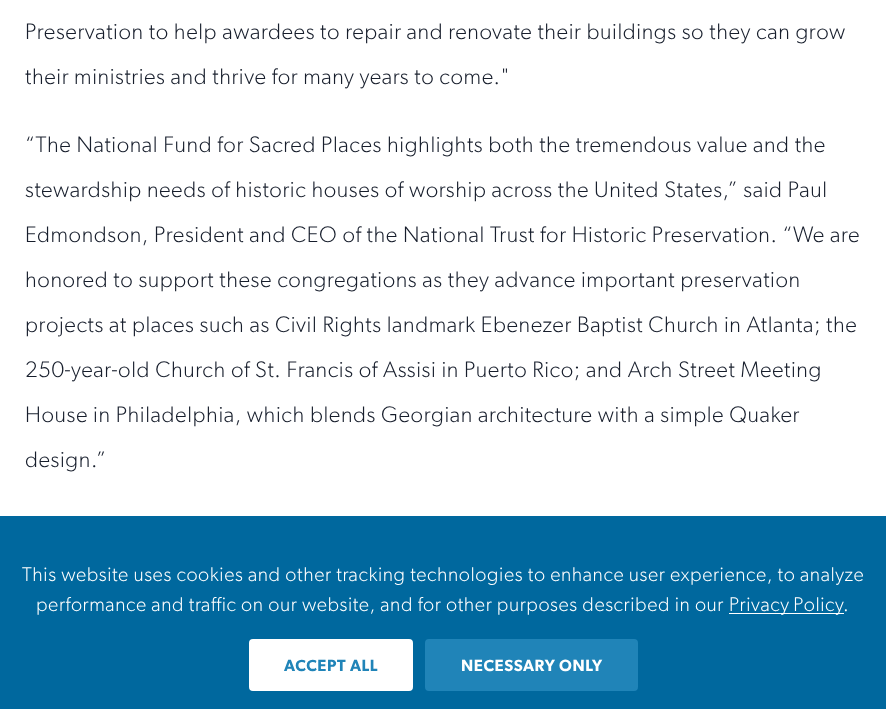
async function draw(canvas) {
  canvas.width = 886
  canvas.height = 709
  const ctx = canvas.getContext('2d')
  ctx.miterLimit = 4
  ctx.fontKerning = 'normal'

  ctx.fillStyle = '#fff'
  ctx.fillRect(0, 0, 886, 709)
  ctx.letterSpacing = '0.6px'
  ctx.font = '200 22.5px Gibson'
  ctx.fillStyle = '#171e2c'
  ctx.fillText('Preservation to help awardees to repair and renovate their buildings so they can grow', 25, 39)
  ctx.fillText('their ministries and thrive for many years to come."', 25, 84)
  ctx.fillText('“The National Fund for Sacred Places highlights both the tremendous value and the', 25, 152)
  ctx.fillText('stewardship needs of historic houses of worship across the United States,” said Paul', 25, 197)
  ctx.fillText('Edmondson, President and CEO of the National Trust for Historic Preservation. “We are', 25, 242)
  ctx.fillText('honored to support these congregations as they advance important preservation', 25, 287)
  ctx.fillText('projects at places such as Civil Rights landmark Ebenezer Baptist Church in Atlanta; the', 25, 332)
  ctx.fillText('250-year-old Church of St. Francis of Assisi in Puerto Rico; and Arch Street Meeting', 25, 377)
  ctx.fillText('House in Philadelphia, which blends Georgian architecture with a simple Quaker', 25, 422)
  ctx.fillText('design.”', 25, 467)
  ctx.fillStyle = '#00689e'
  ctx.fillRect(0, 516, 886, 193)
  ctx.font = '200 20px Gibson'
  ctx.fillStyle = '#fff'
  ctx.fillText('This website uses cookies and other tracking technologies to enhance user experience, to analyze', 22, 581)
  ctx.fillText('performance and traffic on our website, and for other purposes described in our', 36, 611)
  ctx.fillRect(729, 613, 115, 1)
  ctx.wordSpacing = '-1px'
  ctx.fillText('Privacy Policy', 729, 611)
  ctx.wordSpacing = '0px'
  ctx.fillText('.', 843, 611)
  ctx.beginPath()
  ctx.roundRect(250.5, 640.5, 161, 49, 2.5)
  ctx.fill()
  ctx.strokeStyle = '#fff'
  ctx.lineWidth = 3
  ctx.stroke()
  ctx.font = '600 16.25px Gibson'
  ctx.fillStyle = '#2084b8'
  ctx.fillText('ACCEPT ALL', 284, 671)
  ctx.beginPath()
  ctx.roundRect(426.5, 640.5, 210, 49, 2.5)
  ctx.fill()
  ctx.strokeStyle = '#2084b8'
  ctx.stroke()
  ctx.fillStyle = '#fff'
  ctx.fillText('NECESSARY ONLY', 461, 671)
}

draw(document.querySelector('canvas'))
